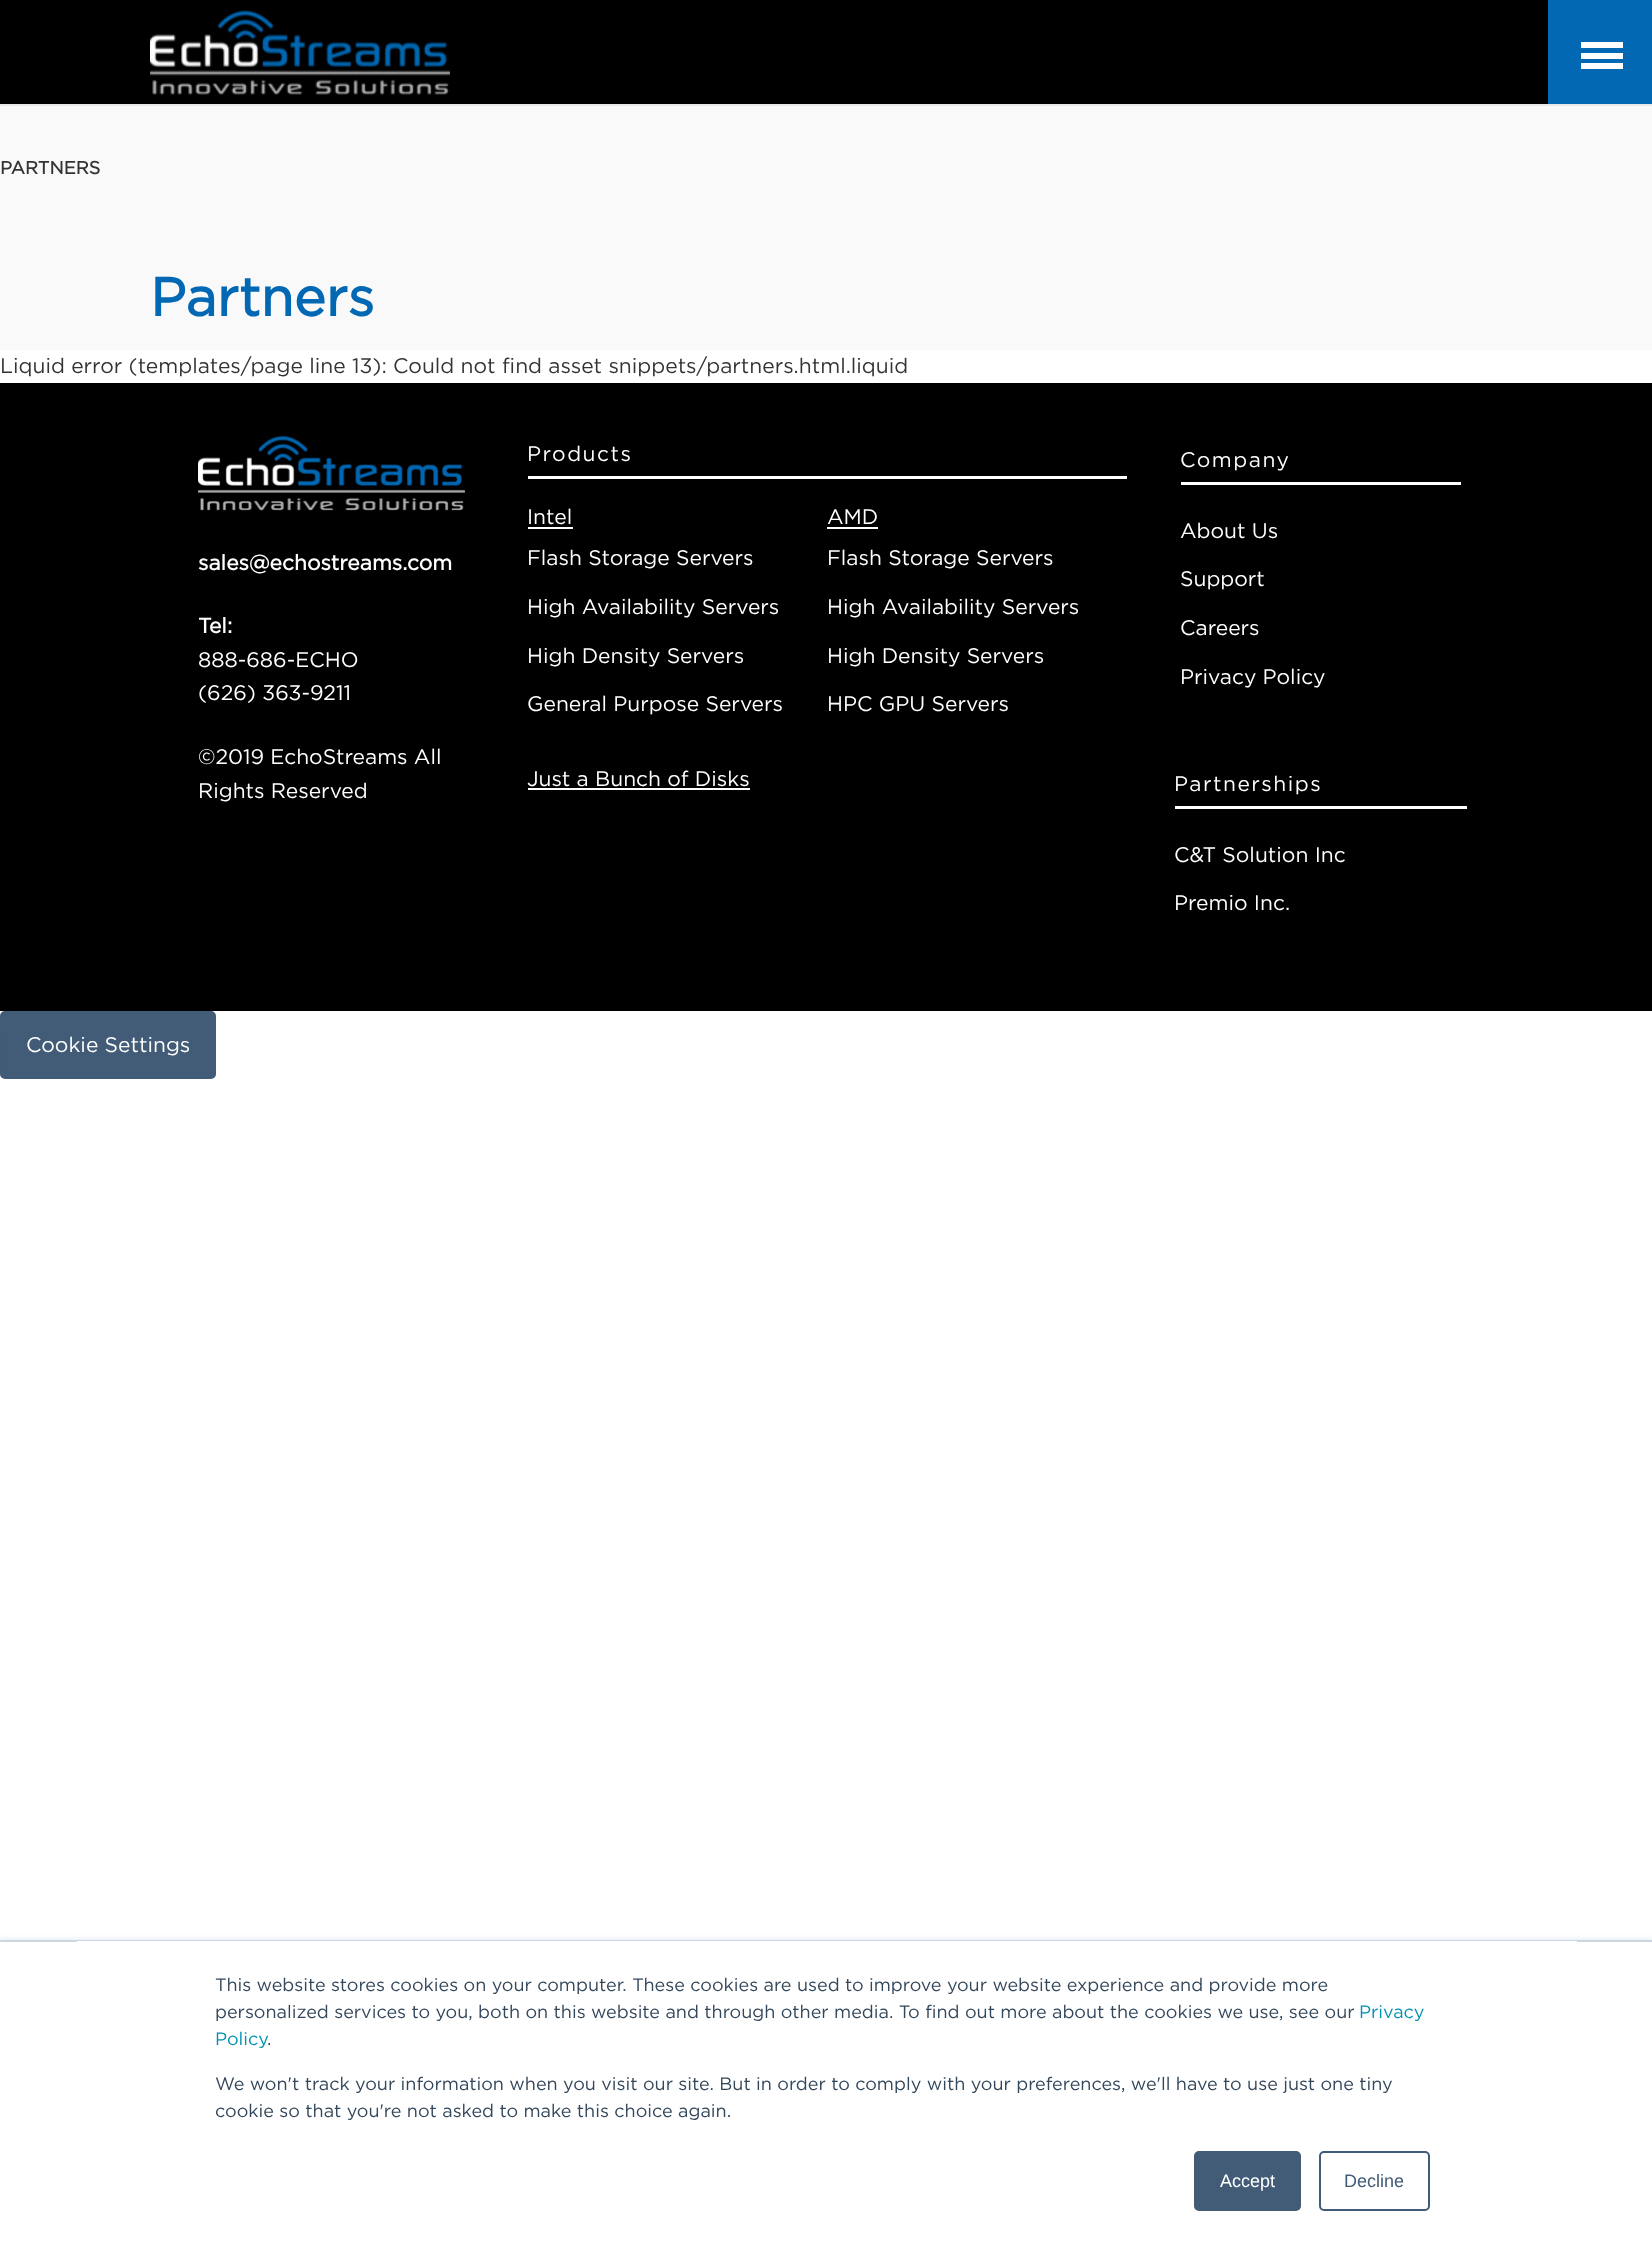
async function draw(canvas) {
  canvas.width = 1652
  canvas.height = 2249
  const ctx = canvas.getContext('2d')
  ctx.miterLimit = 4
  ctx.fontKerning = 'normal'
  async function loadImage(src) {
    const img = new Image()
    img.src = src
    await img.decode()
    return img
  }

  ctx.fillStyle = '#fff'
  ctx.fillRect(0, 0, 1652, 2249)
  ctx.fillStyle = '#000'
  ctx.fillRect(0, 0, 1548, 104)
  ctx.fillStyle = '#e9e9e9'
  ctx.fillRect(0, 104, 1652, 2)
  ctx.drawImage(await loadImage('image0.png'), 150, 10, 300, 85)
  ctx.fillStyle = '#0368b3'
  ctx.fillRect(1548, 0, 104, 104)
  ctx.fillStyle = '#fff'
  ctx.fillRect(1581, 53, 42, 6)
  ctx.fillRect(1581, 42, 42, 6)
  ctx.fillRect(1581, 63, 42, 6)
  ctx.fillStyle = '#f9f9f9'
  ctx.fillRect(0, 106, 1652, 244)
  ctx.font = 'bold 18px Gotham'
  ctx.fillStyle = '#343434'
  ctx.fillText('PARTNERS', 0, 174)
  ctx.font = 'bold 54px Gotham'
  ctx.fillStyle = '#0368b3'
  ctx.fillText('Partners', 150, 316)
  ctx.font = '21px Gotham'
  ctx.fillStyle = '#343434'
  ctx.fillText('Liquid error (templates/page line 13): Could not find asset snippets/partners.html.liquid', 0, 373)
  ctx.fillStyle = '#000'
  ctx.fillRect(0, 383, 1652, 628)
  ctx.drawImage(await loadImage('image1.png'), 198, 435, 267, 76)
  ctx.font = 'bold 21px Gotham'
  ctx.fillStyle = '#fff'
  ctx.fillText('sales@echostreams.com', 198, 570)
  ctx.fillText('Tel:', 198, 633)
  ctx.font = '21px Gotham'
  ctx.fillText('888-686-ECHO', 198, 667)
  ctx.fillText('(626) 363-9211', 198, 700)
  ctx.fillText('©2019 EchoStreams All', 198, 764)
  ctx.fillText('Rights Reserved', 198, 798)
  ctx.fillRect(528, 476, 599, 3)
  ctx.letterSpacing = '1.5px'
  ctx.fillText('Products', 527, 461)
  ctx.letterSpacing = '0px'
  ctx.fillText('Intel', 527, 524)
  ctx.fillRect(528, 527, 45, 2)
  ctx.fillText('Flash Storage Servers', 527, 565)
  ctx.fillText('High Availability Servers', 527, 614)
  ctx.fillText('High Density Servers', 527, 663)
  ctx.fillText('General Purpose Servers', 527, 711)
  ctx.fillText('Just a Bunch of Disks', 527, 786)
  ctx.fillRect(528, 788, 222, 2)
  ctx.fillText('AMD', 827, 524)
  ctx.fillRect(827, 527, 51, 2)
  ctx.fillText('Flash Storage Servers', 827, 565)
  ctx.fillText('High Availability Servers', 827, 614)
  ctx.fillText('High Density Servers', 827, 663)
  ctx.fillText('HPC GPU Servers', 827, 711)
  ctx.fillRect(1181, 482, 280, 3)
  ctx.letterSpacing = '1.5px'
  ctx.fillText('Company', 1180, 467)
  ctx.letterSpacing = '0px'
  ctx.fillText('About Us', 1180, 538)
  ctx.fillText('Support', 1180, 586)
  ctx.fillText('Careers', 1180, 635)
  ctx.fillText('Privacy Policy', 1180, 684)
  ctx.fillRect(1175, 806, 292, 3)
  ctx.letterSpacing = '1.5px'
  ctx.fillText('Partnerships', 1174, 791)
  ctx.letterSpacing = '0px'
  ctx.fillText('C&T Solution Inc', 1174, 862)
  ctx.fillText('Premio Inc.', 1174, 910)
  ctx.fillStyle = '#425b76'
  ctx.beginPath()
  ctx.roundRect(1, 1012, 214, 66, 4)
  ctx.fill()
  ctx.strokeStyle = '#425b76'
  ctx.lineWidth = 2
  ctx.stroke()
  ctx.fillStyle = '#fff'
  ctx.fillText('Cookie Settings', 26, 1052)
  ctx.save()
  ctx.beginPath()
  ctx.rect(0, 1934, 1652, 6)
  ctx.clip()
  ctx.fillStyle = '#eaf0f6'
  ctx.filter = 'blur(2px)'
  ctx.beginPath()
  ctx.rect(0, 1938, 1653, 311)
  ctx.fill()
  ctx.filter = 'none'
  ctx.restore()
  ctx.fillStyle = '#cbd6e2'
  ctx.fillRect(0, 1940, 1652, 2)
  ctx.fillStyle = '#fff'
  ctx.fillRect(77, 1941, 1500, 1)
  ctx.font = '18px Gotham'
  ctx.fillStyle = '#33475b'
  ctx.fillText('This website stores cookies on your computer. These cookies are used to improve your website experience and provide more', 215, 1991)
  ctx.fillText('personalized services to you, both on this website and through other media. To find out more about the cookies we use, see our', 215, 2018)
  ctx.fillStyle = '#0091ae'
  ctx.fillText('Privacy', 1359, 2018)
  ctx.fillText('Policy', 215, 2045)
  ctx.fillStyle = '#33475b'
  ctx.fillText('.', 267, 2045)
  ctx.fillText('We won\'t track your information when you visit our site. But in order to comply with your preferences, we\'ll have to use just one tiny', 215, 2090)
  ctx.fillText('cookie so that you\'re not asked to make this choice again.', 215, 2117)
  ctx.fillStyle = '#425b76'
  ctx.beginPath()
  ctx.roundRect(1195, 2152, 105, 58, 4)
  ctx.fill()
  ctx.stroke()
  ctx.font = '18px Liberation Sans'
  ctx.fillStyle = '#fff'
  ctx.fillText('Accept', 1220, 2187)
  ctx.beginPath()
  ctx.roundRect(1320, 2152, 109, 58, 4)
  ctx.stroke()
  ctx.fillStyle = '#425b76'
  ctx.fillText('Decline', 1344, 2187)
}

draw(document.querySelector('canvas'))
